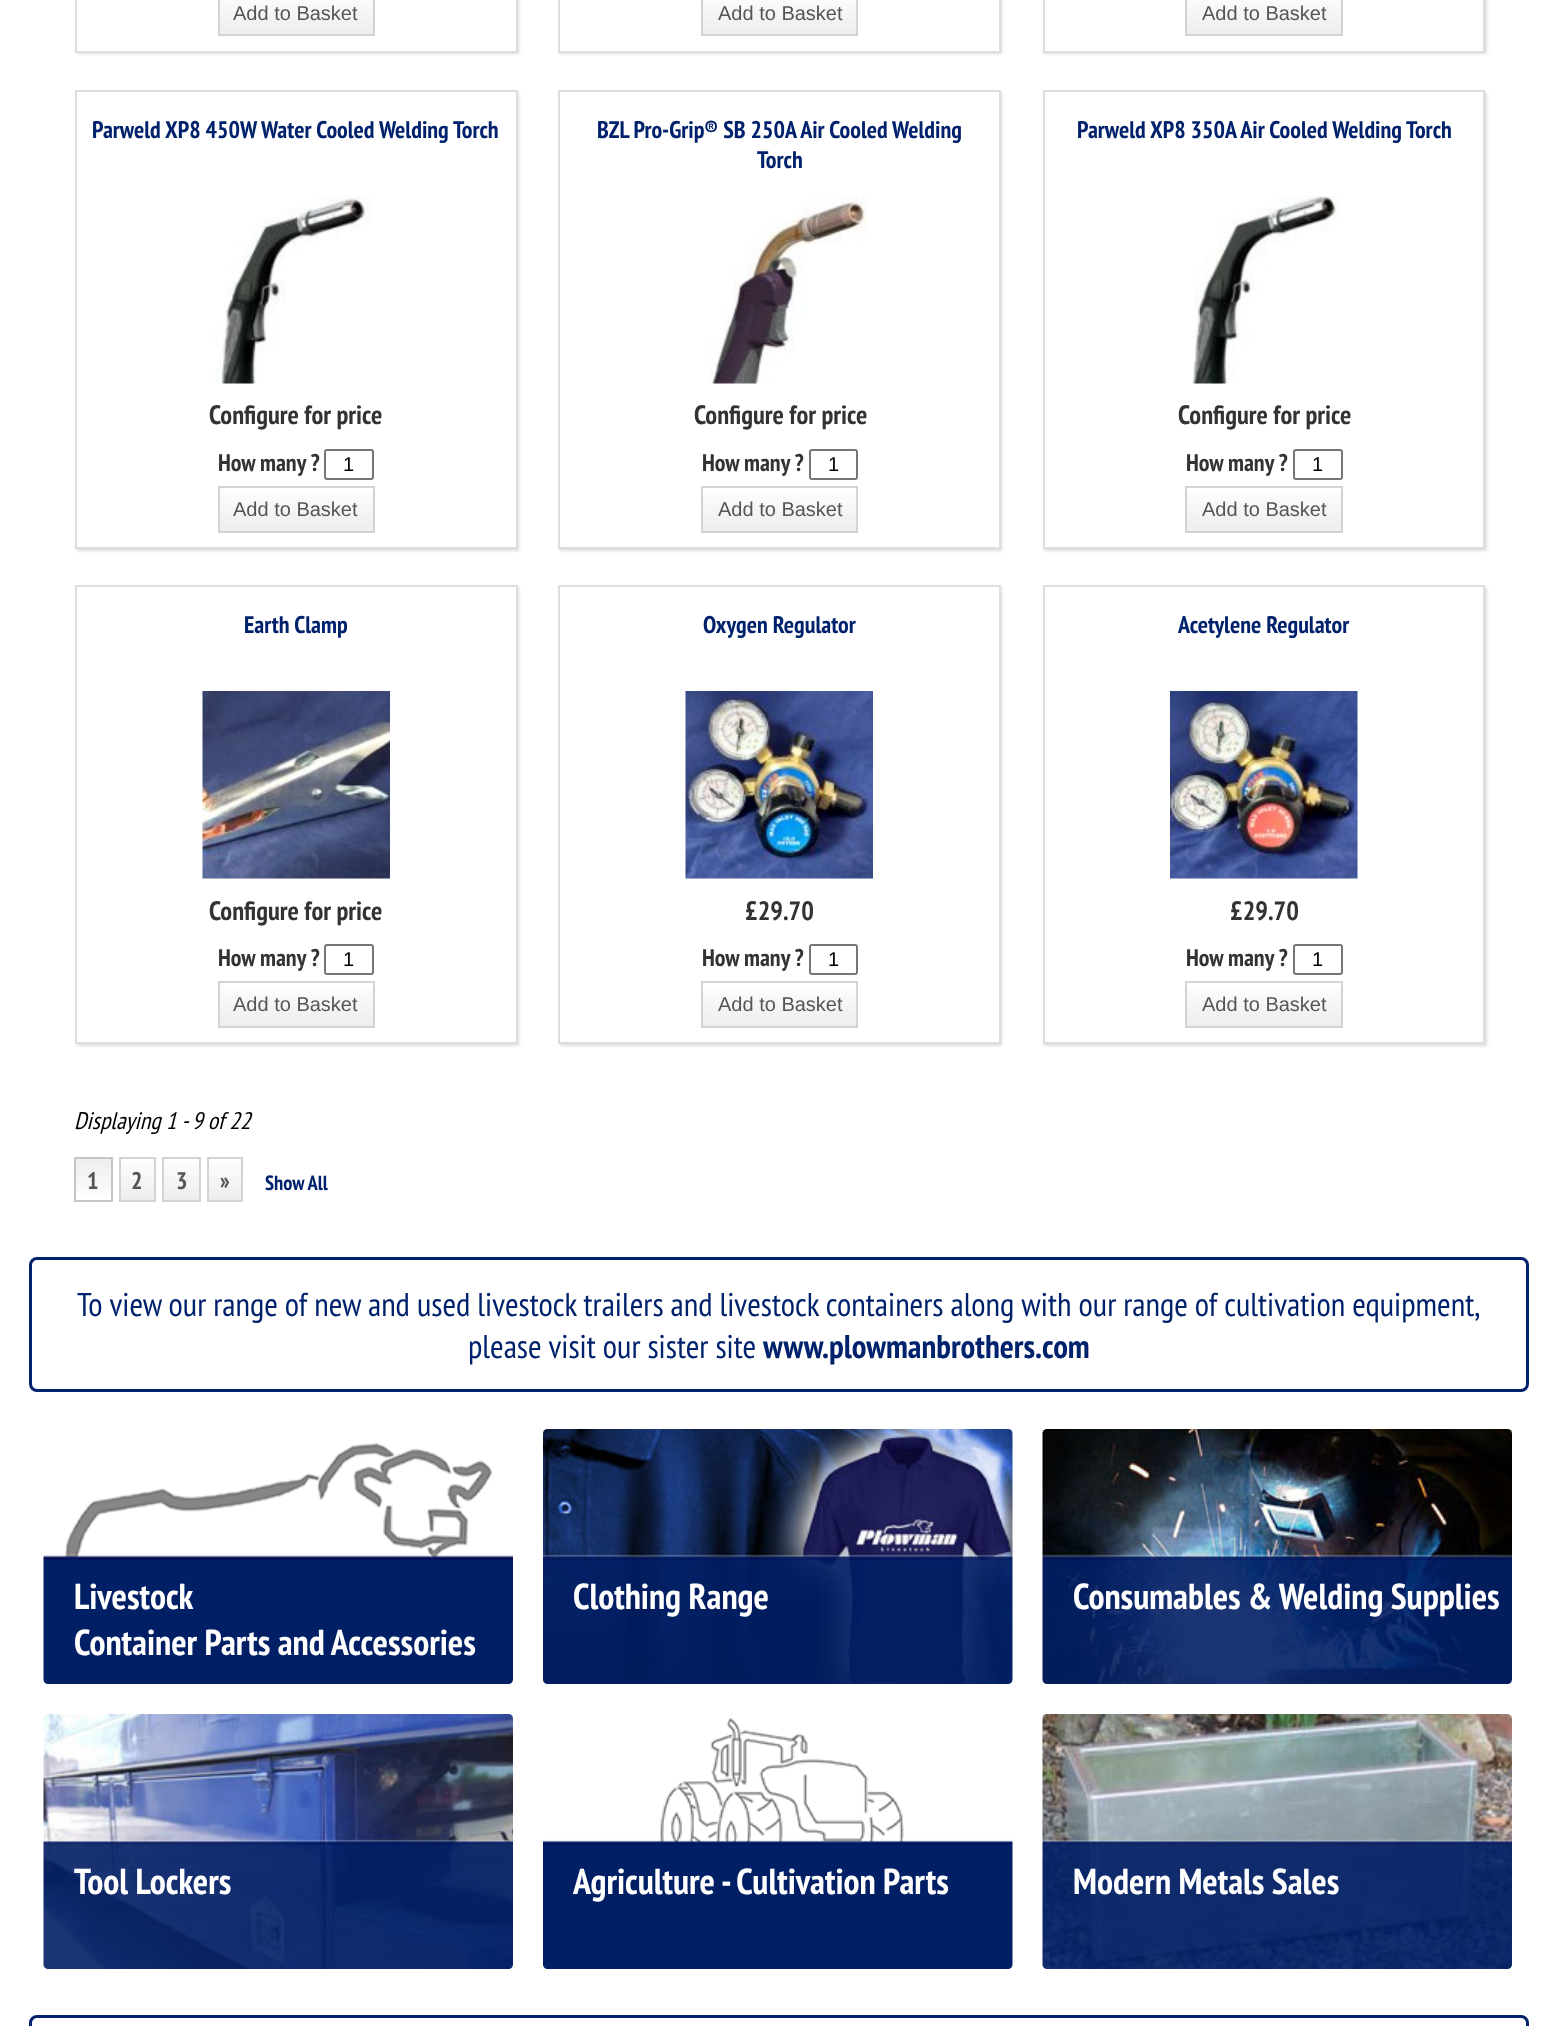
async function draw(canvas) {
  canvas.width = 1557
  canvas.height = 2026
  const ctx = canvas.getContext('2d')
  ctx.miterLimit = 4
  ctx.fontKerning = 'normal'
  async function loadImage(src) {
    const img = new Image()
    img.src = src
    await img.decode()
    return img
  }
  let gradient

  ctx.fillStyle = '#fff'
  ctx.fillRect(0, 0, 1557, 2026)
  ctx.fillStyle = '#ddd'
  ctx.filter = 'blur(1.5px)'
  ctx.beginPath()
  ctx.rect(77, -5, 442, 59)
  ctx.fill()
  ctx.filter = 'none'
  ctx.fillStyle = '#fff'
  ctx.beginPath()
  ctx.rect(76, -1, 441, 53)
  ctx.fill()
  ctx.strokeStyle = '#ddd'
  ctx.lineWidth = 2
  ctx.stroke()
  gradient = ctx.createLinearGradient(296, -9, 296, 35)
  gradient.addColorStop(0, '#fefefe')
  gradient.addColorStop(1, '#ededed')
  ctx.fillStyle = gradient
  ctx.fillRect(220, 0, 153, 34)
  ctx.strokeStyle = '#d3d3d3'
  ctx.strokeRect(219, -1, 155, 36)
  ctx.font = '20px Liberation Sans'
  ctx.fillStyle = '#555'
  ctx.fillText('Add to Basket', 233, 20)
  ctx.fillStyle = '#ddd'
  ctx.filter = 'blur(1.5px)'
  ctx.beginPath()
  ctx.rect(560, -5, 442, 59)
  ctx.fill()
  ctx.filter = 'none'
  ctx.fillStyle = '#fff'
  ctx.beginPath()
  ctx.rect(559, -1, 441, 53)
  ctx.fill()
  ctx.strokeStyle = '#ddd'
  ctx.stroke()
  gradient = ctx.createLinearGradient(779, -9, 779, 35)
  gradient.addColorStop(0, '#fefefe')
  gradient.addColorStop(1, '#ededed')
  ctx.fillStyle = gradient
  ctx.fillRect(703, 0, 153, 34)
  ctx.strokeStyle = '#d3d3d3'
  ctx.strokeRect(702, -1, 155, 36)
  ctx.fillStyle = '#555'
  ctx.fillText('Add to Basket', 718, 20)
  ctx.fillStyle = '#ddd'
  ctx.filter = 'blur(1.5px)'
  ctx.beginPath()
  ctx.rect(1044, -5, 443, 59)
  ctx.fill()
  ctx.filter = 'none'
  ctx.fillStyle = '#fff'
  ctx.beginPath()
  ctx.rect(1044, -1, 440, 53)
  ctx.fill()
  ctx.strokeStyle = '#ddd'
  ctx.stroke()
  gradient = ctx.createLinearGradient(1264, -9, 1264, 35)
  gradient.addColorStop(0, '#fefefe')
  gradient.addColorStop(1, '#ededed')
  ctx.fillStyle = gradient
  ctx.fillRect(1187, 0, 154, 34)
  ctx.strokeStyle = '#d3d3d3'
  ctx.strokeRect(1186, -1, 156, 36)
  ctx.fillStyle = '#555'
  ctx.fillText('Add to Basket', 1202, 20)
  ctx.fillStyle = '#ddd'
  ctx.filter = 'blur(1.5px)'
  ctx.beginPath()
  ctx.rect(77, 92, 442, 459)
  ctx.fill()
  ctx.filter = 'none'
  ctx.fillStyle = '#fff'
  ctx.beginPath()
  ctx.rect(76, 91, 441, 457)
  ctx.fill()
  ctx.strokeStyle = '#ddd'
  ctx.stroke()
  ctx.font = 'bold 24px PT Sans Narrow'
  ctx.fillStyle = '#00226c'
  ctx.fillText('Parweld XP8 450W Water Cooled Welding Torch', 92, 138)
  ctx.drawImage(await loadImage('image0.png'), 215, 196, 155, 188)
  ctx.font = 'bold 26.5px PT Sans Narrow'
  ctx.fillStyle = '#333'
  ctx.fillText('Configure for price', 209, 424)
  ctx.font = 'bold 24px PT Sans Narrow'
  ctx.fillText('How many ?', 218, 471)
  ctx.beginPath()
  ctx.roundRect(325, 450, 48, 29, 2)
  ctx.strokeStyle = '#767676'
  ctx.stroke()
  ctx.font = '20px Liberation Sans'
  ctx.fillStyle = '#000'
  ctx.fillText('1', 343, 471)
  gradient = ctx.createLinearGradient(296, 488, 296, 531)
  gradient.addColorStop(0, '#fefefe')
  gradient.addColorStop(1, '#ededed')
  ctx.fillStyle = gradient
  ctx.fillRect(220, 492, 153, 39)
  ctx.strokeStyle = '#d3d3d3'
  ctx.strokeRect(219, 487, 155, 45)
  ctx.fillStyle = '#555'
  ctx.fillText('Add to Basket', 233, 516)
  ctx.fillStyle = '#ddd'
  ctx.filter = 'blur(1.5px)'
  ctx.beginPath()
  ctx.rect(560, 92, 442, 459)
  ctx.fill()
  ctx.filter = 'none'
  ctx.fillStyle = '#fff'
  ctx.beginPath()
  ctx.rect(559, 91, 441, 457)
  ctx.fill()
  ctx.strokeStyle = '#ddd'
  ctx.stroke()
  ctx.font = 'bold 24px PT Sans Narrow'
  ctx.fillStyle = '#00226c'
  ctx.fillText('BZL Pro-Grip® SB 250A Air Cooled Welding', 597, 138)
  ctx.fillText('Torch', 757, 168)
  ctx.drawImage(await loadImage('image1.png'), 710, 196, 159, 188)
  ctx.font = 'bold 26.5px PT Sans Narrow'
  ctx.fillStyle = '#333'
  ctx.fillText('Configure for price', 694, 424)
  ctx.font = 'bold 24px PT Sans Narrow'
  ctx.fillText('How many ?', 702, 471)
  ctx.beginPath()
  ctx.roundRect(810, 450, 47, 29, 2)
  ctx.strokeStyle = '#767676'
  ctx.stroke()
  ctx.font = '20px Liberation Sans'
  ctx.fillStyle = '#000'
  ctx.fillText('1', 828, 471)
  gradient = ctx.createLinearGradient(779, 488, 779, 531)
  gradient.addColorStop(0, '#fefefe')
  gradient.addColorStop(1, '#ededed')
  ctx.fillStyle = gradient
  ctx.fillRect(703, 492, 153, 39)
  ctx.strokeStyle = '#d3d3d3'
  ctx.strokeRect(702, 487, 155, 45)
  ctx.fillStyle = '#555'
  ctx.fillText('Add to Basket', 718, 516)
  ctx.save()
  ctx.beginPath()
  ctx.moveTo(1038, 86)
  ctx.lineTo(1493, 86)
  ctx.lineTo(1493, 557)
  ctx.lineTo(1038, 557)
  ctx.closePath()
  ctx.moveTo(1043, 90)
  ctx.lineTo(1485, 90)
  ctx.lineTo(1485, 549)
  ctx.lineTo(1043, 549)
  ctx.closePath()
  ctx.clip('evenodd')
  ctx.fillStyle = '#ddd'
  ctx.filter = 'blur(1.5px)'
  ctx.beginPath()
  ctx.rect(1044, 92, 443, 459)
  ctx.fill()
  ctx.filter = 'none'
  ctx.restore()
  ctx.strokeStyle = '#ddd'
  ctx.strokeRect(1044, 91, 440, 457)
  ctx.font = 'bold 24px PT Sans Narrow'
  ctx.fillStyle = '#00226c'
  ctx.fillText('Parweld XP8 350A Air Cooled Welding Torch', 1077, 138)
  ctx.drawImage(await loadImage('image2.png'), 1192, 196, 147, 188)
  ctx.font = 'bold 26.5px PT Sans Narrow'
  ctx.fillStyle = '#333'
  ctx.fillText('Configure for price', 1178, 424)
  ctx.font = 'bold 24px PT Sans Narrow'
  ctx.fillText('How many ?', 1186, 471)
  ctx.beginPath()
  ctx.roundRect(1294, 450, 48, 29, 2)
  ctx.strokeStyle = '#767676'
  ctx.stroke()
  ctx.font = '20px Liberation Sans'
  ctx.fillStyle = '#000'
  ctx.fillText('1', 1312, 471)
  gradient = ctx.createLinearGradient(1264, 488, 1264, 531)
  gradient.addColorStop(0, '#fefefe')
  gradient.addColorStop(1, '#ededed')
  ctx.fillStyle = gradient
  ctx.fillRect(1187, 492, 154, 39)
  ctx.strokeStyle = '#d3d3d3'
  ctx.strokeRect(1186, 487, 156, 45)
  ctx.fillStyle = '#555'
  ctx.fillText('Add to Basket', 1202, 516)
  ctx.fillStyle = '#ddd'
  ctx.filter = 'blur(1.5px)'
  ctx.beginPath()
  ctx.rect(77, 587, 442, 459)
  ctx.fill()
  ctx.filter = 'none'
  ctx.fillStyle = '#fff'
  ctx.beginPath()
  ctx.rect(76, 586, 441, 457)
  ctx.fill()
  ctx.strokeStyle = '#ddd'
  ctx.stroke()
  ctx.font = 'bold 24px PT Sans Narrow'
  ctx.fillStyle = '#00226c'
  ctx.fillText('Earth Clamp', 244, 633)
  ctx.drawImage(await loadImage('image3.png'), 202, 691, 188, 188)
  ctx.font = 'bold 26.5px PT Sans Narrow'
  ctx.fillStyle = '#333'
  ctx.fillText('Configure for price', 209, 920)
  ctx.font = 'bold 24px PT Sans Narrow'
  ctx.fillText('How many ?', 218, 966)
  ctx.beginPath()
  ctx.roundRect(325, 945, 48, 29, 2)
  ctx.strokeStyle = '#767676'
  ctx.stroke()
  ctx.font = '20px Liberation Sans'
  ctx.fillStyle = '#000'
  ctx.fillText('1', 343, 966)
  gradient = ctx.createLinearGradient(296, 983, 296, 1026)
  gradient.addColorStop(0, '#fefefe')
  gradient.addColorStop(1, '#ededed')
  ctx.fillStyle = gradient
  ctx.fillRect(220, 987, 153, 39)
  ctx.strokeStyle = '#d3d3d3'
  ctx.strokeRect(219, 982, 155, 45)
  ctx.fillStyle = '#555'
  ctx.fillText('Add to Basket', 233, 1011)
  ctx.fillStyle = '#ddd'
  ctx.filter = 'blur(1.5px)'
  ctx.beginPath()
  ctx.rect(560, 587, 442, 459)
  ctx.fill()
  ctx.filter = 'none'
  ctx.fillStyle = '#fff'
  ctx.beginPath()
  ctx.rect(559, 586, 441, 457)
  ctx.fill()
  ctx.strokeStyle = '#ddd'
  ctx.stroke()
  ctx.font = 'bold 24px PT Sans Narrow'
  ctx.fillStyle = '#00226c'
  ctx.fillText('Oxygen Regulator', 703, 633)
  ctx.drawImage(await loadImage('image4.png'), 685, 691, 188, 188)
  ctx.font = 'bold 26.5px PT Sans Narrow'
  ctx.fillStyle = '#333'
  ctx.fillText('£29.70', 745, 920)
  ctx.font = 'bold 24px PT Sans Narrow'
  ctx.fillText('How many ?', 702, 966)
  ctx.beginPath()
  ctx.roundRect(810, 945, 47, 29, 2)
  ctx.strokeStyle = '#767676'
  ctx.stroke()
  ctx.font = '20px Liberation Sans'
  ctx.fillStyle = '#000'
  ctx.fillText('1', 828, 966)
  gradient = ctx.createLinearGradient(779, 983, 779, 1026)
  gradient.addColorStop(0, '#fefefe')
  gradient.addColorStop(1, '#ededed')
  ctx.fillStyle = gradient
  ctx.fillRect(703, 987, 153, 39)
  ctx.strokeStyle = '#d3d3d3'
  ctx.strokeRect(702, 982, 155, 45)
  ctx.fillStyle = '#555'
  ctx.fillText('Add to Basket', 718, 1011)
  ctx.save()
  ctx.beginPath()
  ctx.moveTo(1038, 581)
  ctx.lineTo(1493, 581)
  ctx.lineTo(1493, 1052)
  ctx.lineTo(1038, 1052)
  ctx.closePath()
  ctx.moveTo(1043, 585)
  ctx.lineTo(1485, 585)
  ctx.lineTo(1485, 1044)
  ctx.lineTo(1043, 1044)
  ctx.closePath()
  ctx.clip('evenodd')
  ctx.fillStyle = '#ddd'
  ctx.filter = 'blur(1.5px)'
  ctx.beginPath()
  ctx.rect(1044, 587, 443, 459)
  ctx.fill()
  ctx.filter = 'none'
  ctx.restore()
  ctx.strokeStyle = '#ddd'
  ctx.strokeRect(1044, 586, 440, 457)
  ctx.font = 'bold 24px PT Sans Narrow'
  ctx.fillStyle = '#00226c'
  ctx.fillText('Acetylene Regulator', 1178, 633)
  ctx.drawImage(await loadImage('image5.png'), 1170, 691, 188, 188)
  ctx.font = 'bold 26.5px PT Sans Narrow'
  ctx.fillStyle = '#333'
  ctx.fillText('£29.70', 1230, 920)
  ctx.font = 'bold 24px PT Sans Narrow'
  ctx.fillText('How many ?', 1186, 966)
  ctx.beginPath()
  ctx.roundRect(1294, 945, 48, 29, 2)
  ctx.strokeStyle = '#767676'
  ctx.stroke()
  ctx.font = '20px Liberation Sans'
  ctx.fillStyle = '#000'
  ctx.fillText('1', 1312, 966)
  gradient = ctx.createLinearGradient(1264, 983, 1264, 1026)
  gradient.addColorStop(0, '#fefefe')
  gradient.addColorStop(1, '#ededed')
  ctx.fillStyle = gradient
  ctx.fillRect(1187, 987, 154, 39)
  ctx.strokeStyle = '#d3d3d3'
  ctx.strokeRect(1186, 982, 156, 45)
  ctx.fillStyle = '#555'
  ctx.fillText('Add to Basket', 1202, 1011)
  ctx.font = 'italic 24px PT Sans Narrow'
  ctx.fillStyle = '#000'
  ctx.fillText('Displaying 1 - 9 of 22', 74, 1129)
  gradient = ctx.createLinearGradient(93, 1158, 93, 1200)
  gradient.addColorStop(0, '#ededed')
  gradient.addColorStop(1, '#fefefe')
  ctx.fillStyle = gradient
  ctx.fillRect(76, 1159, 35, 37)
  ctx.strokeStyle = '#c6c6c6'
  ctx.strokeRect(75, 1158, 37, 43)
  ctx.font = 'bold 24px PT Sans Narrow'
  ctx.fillStyle = '#555'
  ctx.fillText('1', 87, 1189)
  gradient = ctx.createLinearGradient(137, 1158, 137, 1200)
  gradient.addColorStop(0, '#fefefe')
  gradient.addColorStop(1, '#ededed')
  ctx.fillStyle = gradient
  ctx.fillRect(121, 1162, 33, 38)
  ctx.strokeStyle = '#d3d3d3'
  ctx.strokeRect(120, 1158, 35, 43)
  ctx.fillStyle = '#555'
  ctx.fillText('2', 131, 1189)
  gradient = ctx.createLinearGradient(182, 1158, 182, 1200)
  gradient.addColorStop(0, '#fefefe')
  gradient.addColorStop(1, '#ededed')
  ctx.fillStyle = gradient
  ctx.fillRect(164, 1162, 35, 38)
  ctx.strokeRect(163, 1158, 37, 43)
  ctx.fillStyle = '#555'
  ctx.fillText('3', 176, 1189)
  gradient = ctx.createLinearGradient(225, 1158, 225, 1200)
  gradient.addColorStop(0, '#fefefe')
  gradient.addColorStop(1, '#ededed')
  ctx.fillStyle = gradient
  ctx.fillRect(209, 1162, 32, 38)
  ctx.strokeRect(208, 1158, 34, 43)
  ctx.fillStyle = '#555'
  ctx.fillText('»', 220, 1189)
  ctx.font = 'bold 20.5px PT Sans Narrow'
  ctx.fillStyle = '#00226c'
  ctx.fillText('Show All', 265, 1190)
  ctx.beginPath()
  ctx.roundRect(30.5, 1258.5, 1497, 132, 6.5)
  ctx.strokeStyle = '#00226c'
  ctx.lineWidth = 3
  ctx.stroke()
  ctx.font = '33px PT Sans Narrow'
  ctx.fillText('To view our range of new and used livestock trailers and livestock containers along with our range of cultivation equipment,', 77, 1316)
  ctx.fillText('please visit our sister site', 468, 1358)
  ctx.font = 'bold 33px PT Sans Narrow'
  ctx.fillText('www.plowmanbrothers.com', 763, 1358)
  ctx.drawImage(await loadImage('image6.png'), 43, 1442, 470, 242)
  ctx.font = 'bold 36px PT Sans Narrow'
  ctx.fillStyle = '#fff'
  ctx.fillText('Livestock', 74, 1609)
  ctx.fillText('Container Parts and Accessories', 74, 1655)
  ctx.drawImage(await loadImage('image7.png'), 542, 1429, 471, 255)
  ctx.fillText('Clothing Range', 573, 1609)
  ctx.drawImage(await loadImage('image8.png'), 1042, 1429, 470, 255)
  ctx.fillText('Consumables & Welding Supplies', 1073, 1609)
  ctx.drawImage(await loadImage('image9.png'), 43, 1714, 470, 255)
  ctx.fillText('Tool Lockers', 74, 1894)
  ctx.drawImage(await loadImage('image10.png'), 543, 1718, 470, 251)
  ctx.fillText('Agriculture - Cultivation Parts', 573, 1894)
  ctx.drawImage(await loadImage('image11.png'), 1042, 1714, 470, 255)
  ctx.fillText('Modern Metals Sales', 1073, 1894)
  ctx.beginPath()
  ctx.roundRect(30.5, 2016.5, 1497, 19, 6.5)
  ctx.stroke()
}

draw(document.querySelector('canvas'))
